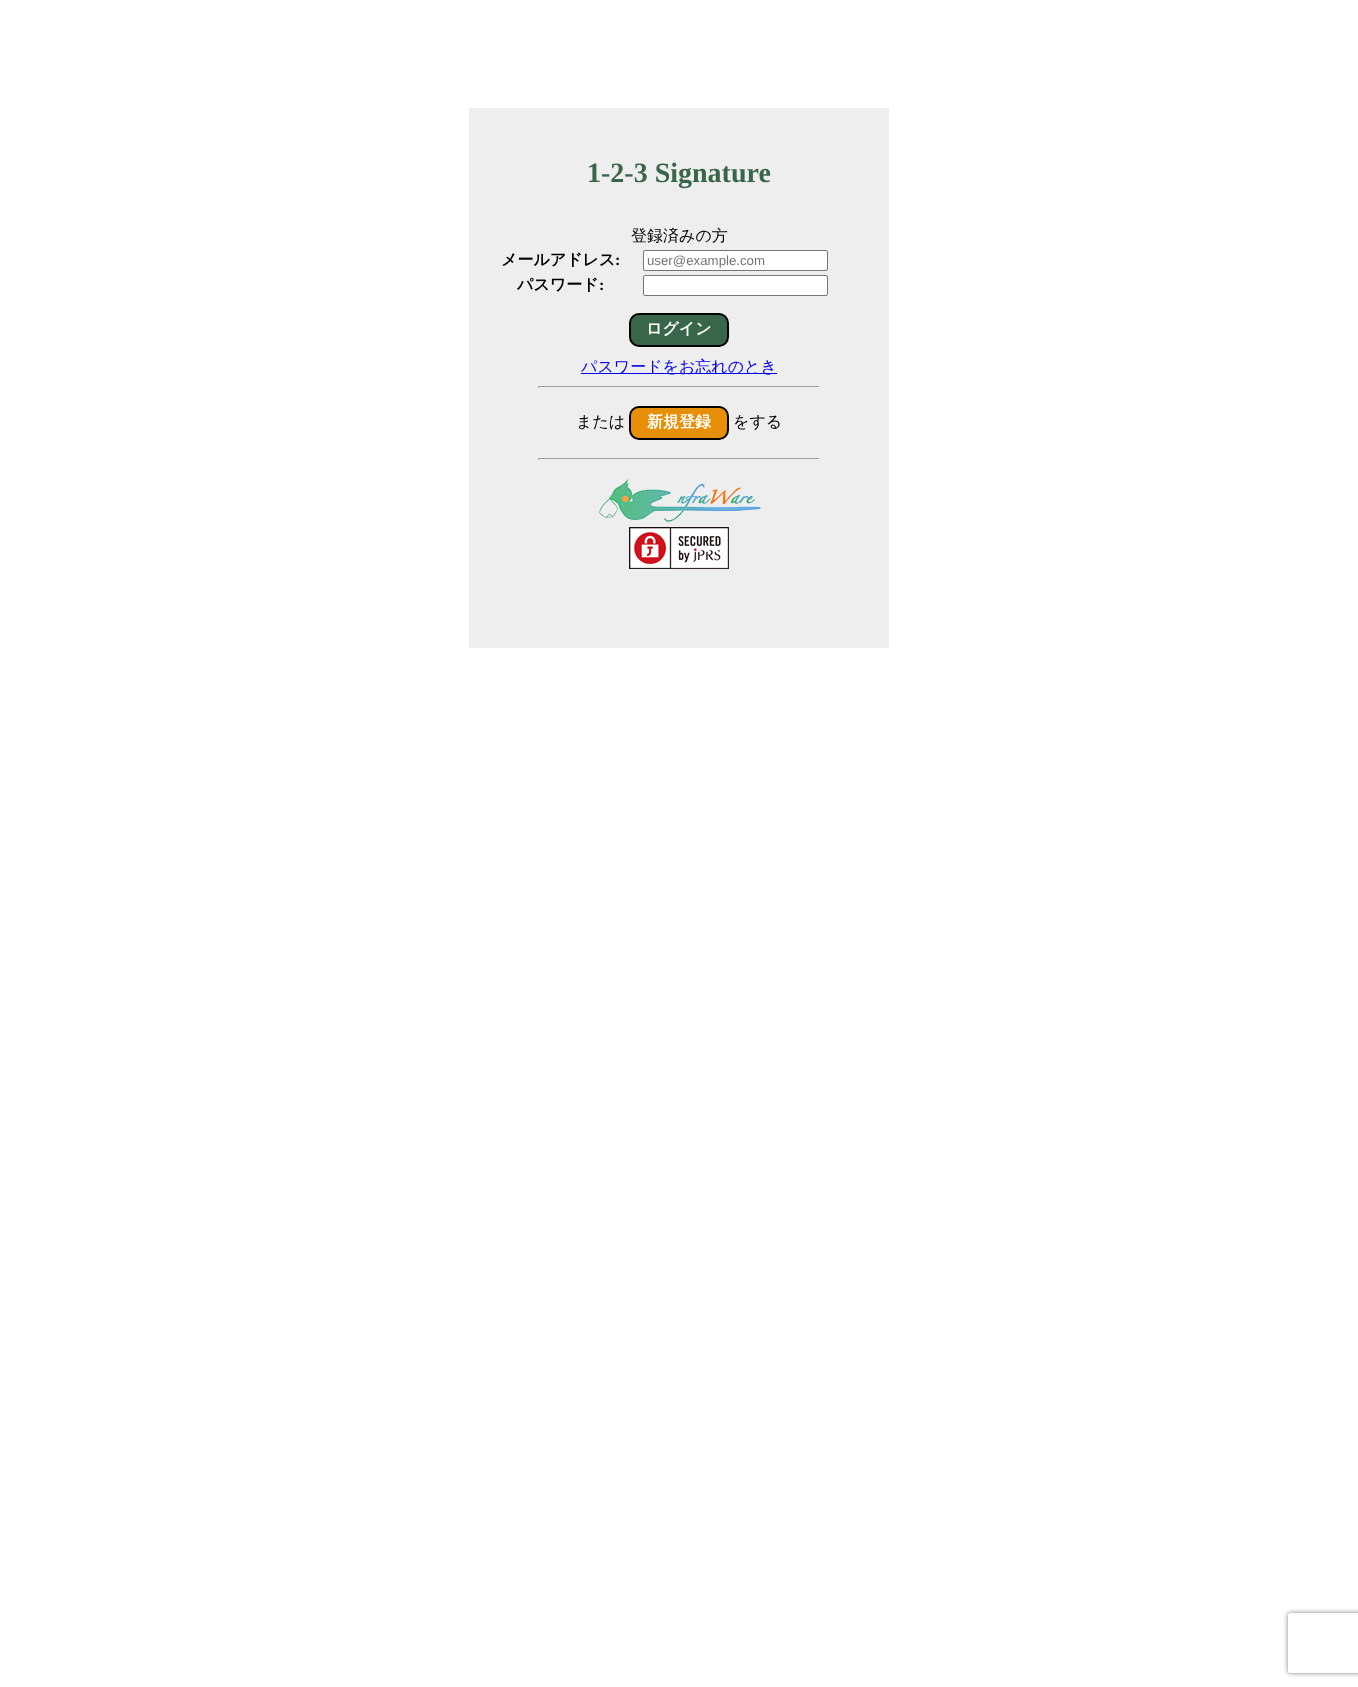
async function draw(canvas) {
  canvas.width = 1358
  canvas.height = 1687
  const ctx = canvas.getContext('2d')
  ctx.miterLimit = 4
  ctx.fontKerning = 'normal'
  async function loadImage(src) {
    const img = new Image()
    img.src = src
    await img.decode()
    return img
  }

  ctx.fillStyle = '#fff'
  ctx.fillRect(0, 0, 1358, 1687)
  ctx.fillStyle = '#eee'
  ctx.fillRect(469, 108, 420, 540)
  ctx.font = 'bold 28px Liberation Serif'
  ctx.fillStyle = '#396648'
  ctx.fillText('1-2-3 Signature', 587, 182)
  ctx.font = '500 16px WenQuanYi Zen Hei'
  ctx.fillStyle = '#000'
  ctx.fillText('登録済みの方', 631, 241)
  ctx.font = 'bold 16px WenQuanYi Zen Hei'
  ctx.fillText('メールアドレス', 501, 265)
  ctx.font = 'bold 16px Liberation Serif'
  ctx.fillText(':', 615, 265)
  ctx.fillStyle = '#fff'
  ctx.beginPath()
  ctx.roundRect(643.5, 250.5, 184, 20, 1.5)
  ctx.fill()
  ctx.strokeStyle = '#767676'
  ctx.stroke()
  ctx.font = '13.25px Liberation Sans'
  ctx.fillStyle = '#757575'
  ctx.fillText('user@example.com', 647, 265)
  ctx.font = 'bold 16px WenQuanYi Zen Hei'
  ctx.fillStyle = '#000'
  ctx.fillText('パスワード', 517, 290)
  ctx.font = 'bold 16px Liberation Serif'
  ctx.fillText(':', 599, 290)
  ctx.fillStyle = '#fff'
  ctx.beginPath()
  ctx.roundRect(643.5, 275.5, 184, 20, 1.5)
  ctx.fill()
  ctx.stroke()
  ctx.fillStyle = '#396648'
  ctx.beginPath()
  ctx.roundRect(630, 314, 98, 32, 9)
  ctx.fill()
  ctx.strokeStyle = '#000'
  ctx.lineWidth = 2
  ctx.stroke()
  ctx.font = 'bold 16px WenQuanYi Zen Hei'
  ctx.fillStyle = '#fff'
  ctx.fillText('ログイン', 646, 334)
  ctx.fillStyle = '#00e'
  ctx.fillRect(581, 373, 196, 1)
  ctx.font = '500 16px WenQuanYi Zen Hei'
  ctx.fillText('パスワードをお忘れのとき', 581, 372)
  ctx.fillStyle = '#9f9f9f'
  ctx.fillRect(538, 386, 282, 1)
  ctx.fillStyle = '#eee'
  ctx.fillRect(819, 386, 1, 2)
  ctx.fillStyle = '#9f9f9f'
  ctx.fillRect(538, 386, 1, 2)
  ctx.fillStyle = '#000'
  ctx.fillText('または', 576, 427)
  ctx.fillStyle = '#e78f08'
  ctx.beginPath()
  ctx.roundRect(630, 407, 98, 32, 9)
  ctx.fill()
  ctx.stroke()
  ctx.font = 'bold 16px WenQuanYi Zen Hei'
  ctx.fillStyle = '#fff'
  ctx.fillText('新規登録', 647, 427)
  ctx.font = '500 16px WenQuanYi Zen Hei'
  ctx.fillStyle = '#000'
  ctx.fillText('をする', 733, 427)
  ctx.fillStyle = '#9f9f9f'
  ctx.fillRect(538, 458, 282, 1)
  ctx.fillStyle = '#eee'
  ctx.fillRect(819, 458, 1, 2)
  ctx.fillStyle = '#9f9f9f'
  ctx.fillRect(538, 458, 1, 2)
  ctx.drawImage(await loadImage('image0.png'), 598, 478, 163, 44)
  ctx.drawImage(await loadImage('image1.png'), 629, 527, 100, 42)
  ctx.save()
  ctx.beginPath()
  ctx.moveTo(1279, 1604)
  ctx.lineTo(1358, 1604)
  ctx.lineTo(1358, 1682)
  ctx.lineTo(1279, 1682)
  ctx.closePath()
  ctx.moveTo(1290, 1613)
  ctx.lineTo(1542, 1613)
  ctx.bezierCurveTo(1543, 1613, 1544, 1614, 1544, 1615)
  ctx.lineTo(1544, 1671)
  ctx.bezierCurveTo(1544, 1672, 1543, 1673, 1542, 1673)
  ctx.lineTo(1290, 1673)
  ctx.bezierCurveTo(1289, 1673, 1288, 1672, 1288, 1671)
  ctx.lineTo(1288, 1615)
  ctx.bezierCurveTo(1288, 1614, 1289, 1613, 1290, 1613)
  ctx.closePath()
  ctx.clip('evenodd')
  ctx.fillStyle = '#808080'
  ctx.filter = 'blur(2.5px)'
  ctx.beginPath()
  ctx.roundRect(1288, 1613, 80, 60, 2)
  ctx.fill()
  ctx.filter = 'none'
  ctx.restore()
}

draw(document.querySelector('canvas'))
